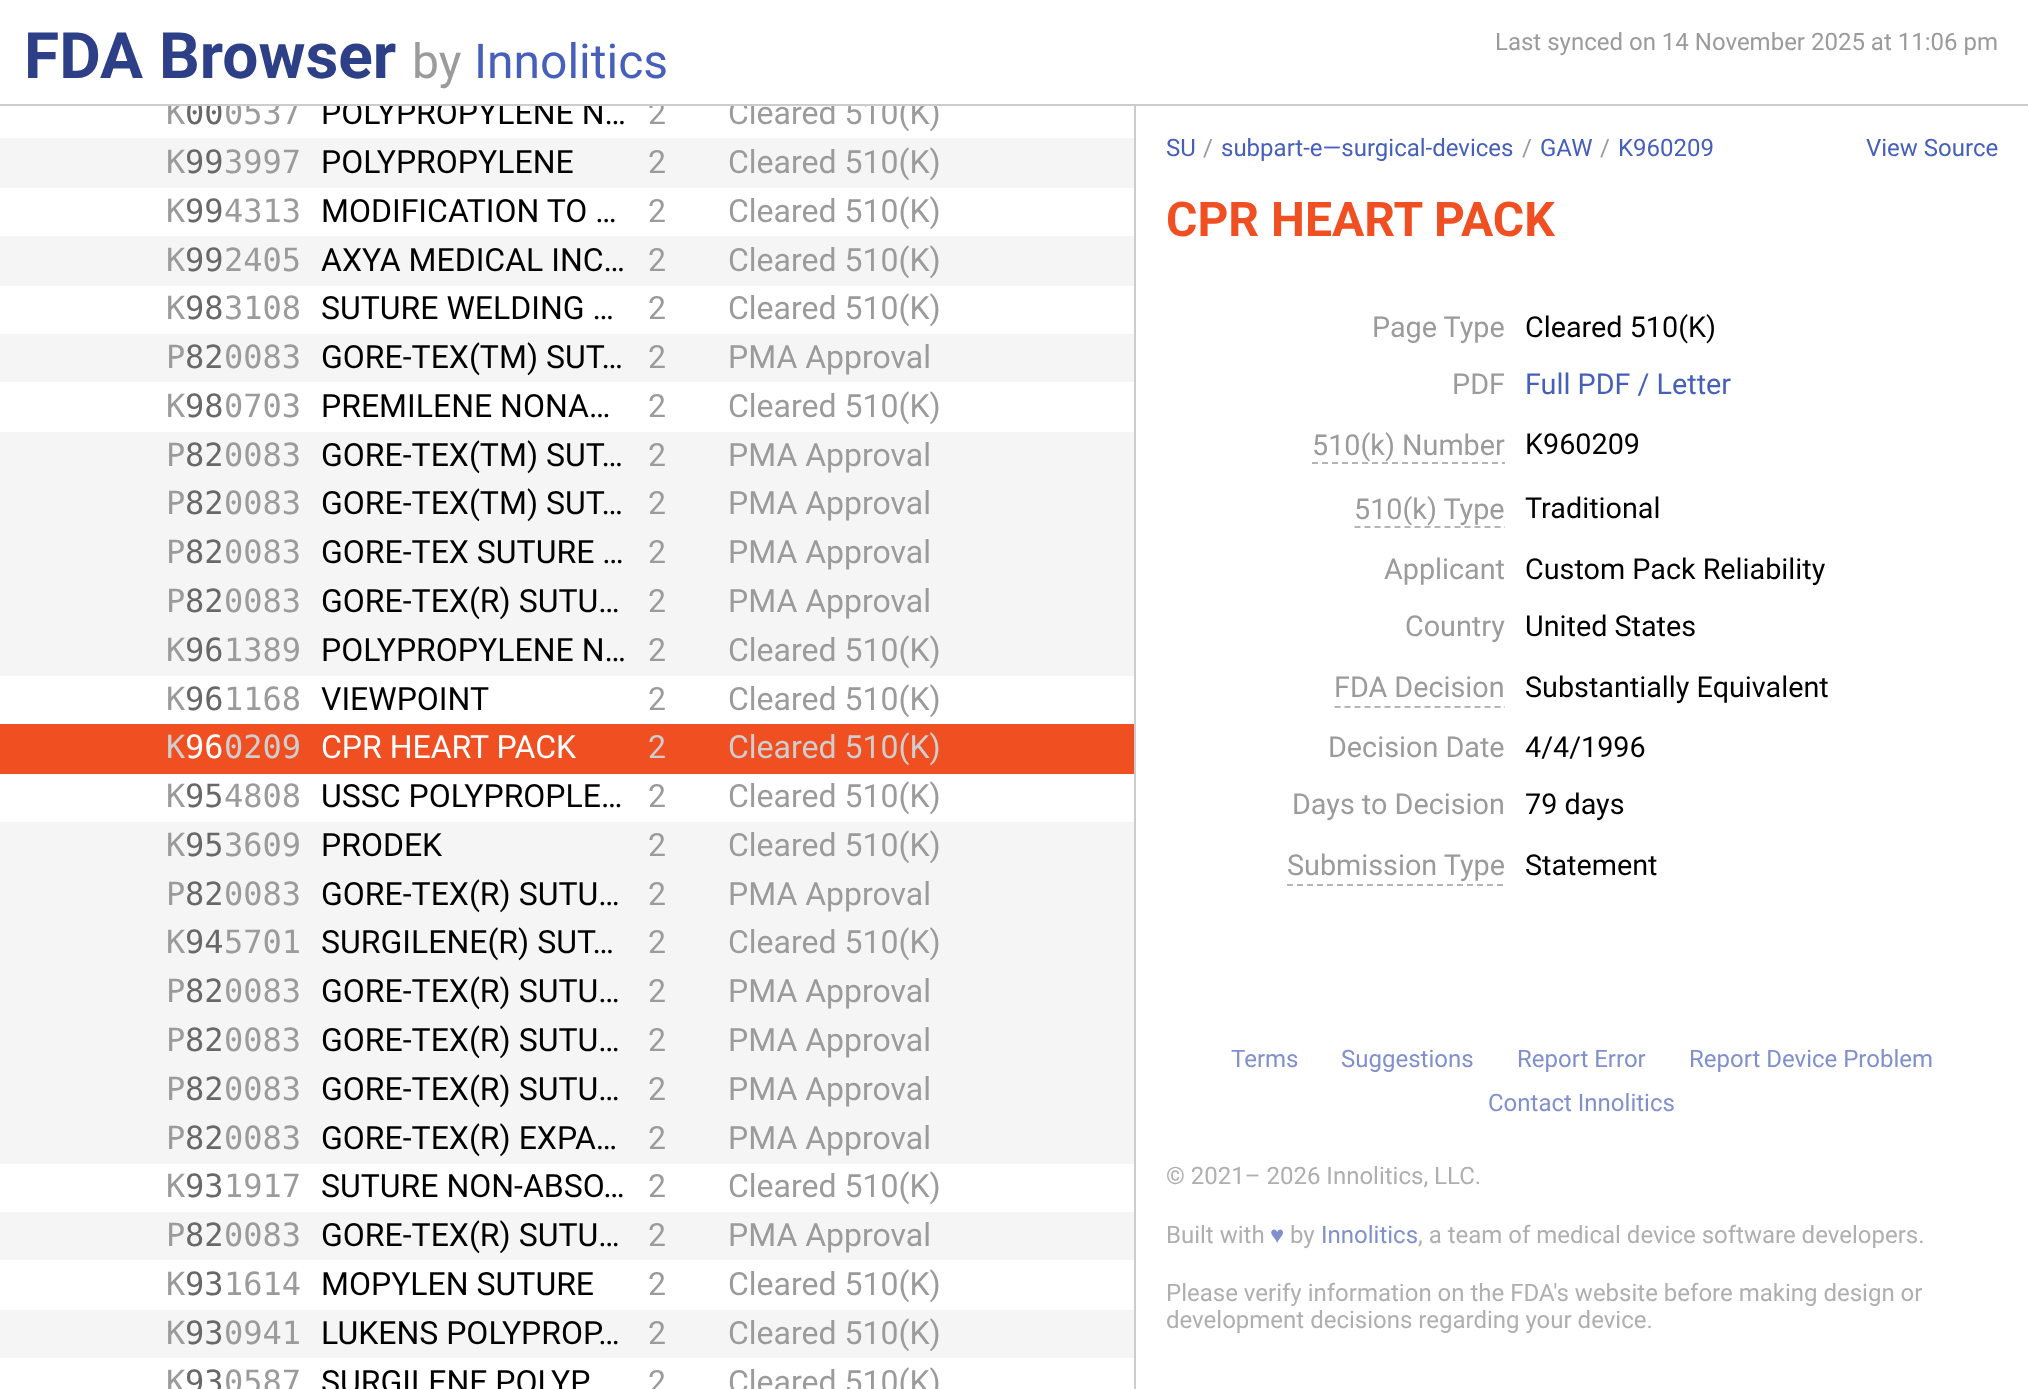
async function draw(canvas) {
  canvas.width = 2028
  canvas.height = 1389
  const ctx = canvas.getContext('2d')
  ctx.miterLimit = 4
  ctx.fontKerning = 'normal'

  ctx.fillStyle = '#fff'
  ctx.fillRect(0, 0, 2028, 1389)
  ctx.fillStyle = '#ccc'
  ctx.fillRect(0, 104, 2028, 2)
  ctx.font = 'bold 64px Roboto'
  ctx.fillStyle = '#2d4087'
  ctx.fillText('FDA Browser', 24, 78)
  ctx.font = '48px Roboto'
  ctx.fillStyle = '#9b9b9b'
  ctx.fillText('by', 412, 78)
  ctx.fillStyle = '#465fbb'
  ctx.fillText('Innolitics', 474, 78)
  ctx.fillStyle = '#ccc'
  ctx.fillRect(1134, 106, 2, 1283)
  ctx.save()
  ctx.beginPath()
  ctx.rect(156, 106, 154, 26)
  ctx.clip()
  ctx.font = '32px DejaVu Sans Mono'
  ctx.fillStyle = '#9b9b9b'
  ctx.fillText('K', 166, 124)
  ctx.fillStyle = '#686868'
  ctx.fillText('00', 185, 124)
  ctx.fillStyle = '#9b9b9b'
  ctx.fillText('0537', 224, 124)
  ctx.restore()
  ctx.save()
  ctx.beginPath()
  ctx.rect(310, 106, 328, 26)
  ctx.clip()
  ctx.font = '32px Roboto'
  ctx.fillStyle = '#000'
  ctx.fillText('POLYPROPYLENE N…', 321, 124)
  ctx.restore()
  ctx.save()
  ctx.beginPath()
  ctx.rect(638, 106, 486, 26)
  ctx.clip()
  ctx.font = '32px Roboto'
  ctx.fillStyle = '#9b9b9b'
  ctx.fillText('2', 648, 124)
  ctx.fillText('Cleared 510(K)', 728, 124)
  ctx.restore()
  ctx.fillStyle = '#f5f5f5'
  ctx.fillRect(0, 138, 1134, 50)
  ctx.font = '32px DejaVu Sans Mono'
  ctx.fillStyle = '#9b9b9b'
  ctx.fillText('K', 166, 173)
  ctx.fillStyle = '#686868'
  ctx.fillText('99', 185, 173)
  ctx.fillStyle = '#9b9b9b'
  ctx.fillText('3997', 224, 173)
  ctx.font = '32px Roboto'
  ctx.fillStyle = '#000'
  ctx.fillText('POLYPROPYLENE', 321, 173)
  ctx.fillStyle = '#9b9b9b'
  ctx.fillText('2', 648, 173)
  ctx.fillText('Cleared 510(K)', 728, 173)
  ctx.font = '32px DejaVu Sans Mono'
  ctx.fillText('K', 166, 222)
  ctx.fillStyle = '#686868'
  ctx.fillText('99', 185, 222)
  ctx.fillStyle = '#9b9b9b'
  ctx.fillText('4313', 224, 222)
  ctx.font = '32px Roboto'
  ctx.fillStyle = '#000'
  ctx.fillText('MODIFICATION TO …', 321, 222)
  ctx.fillStyle = '#9b9b9b'
  ctx.fillText('2', 648, 222)
  ctx.fillText('Cleared 510(K)', 728, 222)
  ctx.fillStyle = '#f5f5f5'
  ctx.fillRect(0, 236, 1134, 50)
  ctx.font = '32px DejaVu Sans Mono'
  ctx.fillStyle = '#9b9b9b'
  ctx.fillText('K', 166, 271)
  ctx.fillStyle = '#686868'
  ctx.fillText('99', 185, 271)
  ctx.fillStyle = '#9b9b9b'
  ctx.fillText('2405', 224, 271)
  ctx.font = '32px Roboto'
  ctx.fillStyle = '#000'
  ctx.fillText('AXYA MEDICAL INC…', 321, 271)
  ctx.fillStyle = '#9b9b9b'
  ctx.fillText('2', 648, 271)
  ctx.fillText('Cleared 510(K)', 728, 271)
  ctx.font = '32px DejaVu Sans Mono'
  ctx.fillText('K', 166, 319)
  ctx.fillStyle = '#686868'
  ctx.fillText('98', 185, 319)
  ctx.fillStyle = '#9b9b9b'
  ctx.fillText('3108', 224, 319)
  ctx.font = '32px Roboto'
  ctx.fillStyle = '#000'
  ctx.fillText('SUTURE WELDING …', 321, 319)
  ctx.fillStyle = '#9b9b9b'
  ctx.fillText('2', 648, 319)
  ctx.fillText('Cleared 510(K)', 728, 319)
  ctx.fillStyle = '#f5f5f5'
  ctx.fillRect(0, 334, 1134, 48)
  ctx.font = '32px DejaVu Sans Mono'
  ctx.fillStyle = '#9b9b9b'
  ctx.fillText('P', 166, 368)
  ctx.fillStyle = '#686868'
  ctx.fillText('82', 185, 368)
  ctx.fillStyle = '#9b9b9b'
  ctx.fillText('0083', 224, 368)
  ctx.font = '32px Roboto'
  ctx.fillStyle = '#000'
  ctx.fillText('GORE-TEX(TM) SUT…', 321, 368)
  ctx.fillStyle = '#9b9b9b'
  ctx.fillText('2', 648, 368)
  ctx.fillText('PMA Approval', 728, 368)
  ctx.font = '32px DejaVu Sans Mono'
  ctx.fillText('K', 166, 417)
  ctx.fillStyle = '#686868'
  ctx.fillText('98', 185, 417)
  ctx.fillStyle = '#9b9b9b'
  ctx.fillText('0703', 224, 417)
  ctx.font = '32px Roboto'
  ctx.fillStyle = '#000'
  ctx.fillText('PREMILENE NONA…', 321, 417)
  ctx.fillStyle = '#9b9b9b'
  ctx.fillText('2', 648, 417)
  ctx.fillText('Cleared 510(K)', 728, 417)
  ctx.fillStyle = '#f5f5f5'
  ctx.fillRect(0, 432, 1134, 244)
  ctx.font = '32px DejaVu Sans Mono'
  ctx.fillStyle = '#9b9b9b'
  ctx.fillText('P', 166, 466)
  ctx.fillStyle = '#686868'
  ctx.fillText('82', 185, 466)
  ctx.fillStyle = '#9b9b9b'
  ctx.fillText('0083', 224, 466)
  ctx.font = '32px Roboto'
  ctx.fillStyle = '#000'
  ctx.fillText('GORE-TEX(TM) SUT…', 321, 466)
  ctx.fillStyle = '#9b9b9b'
  ctx.fillText('2', 648, 466)
  ctx.fillText('PMA Approval', 728, 466)
  ctx.font = '32px DejaVu Sans Mono'
  ctx.fillText('P', 166, 514)
  ctx.fillStyle = '#686868'
  ctx.fillText('82', 185, 514)
  ctx.fillStyle = '#9b9b9b'
  ctx.fillText('0083', 224, 514)
  ctx.font = '32px Roboto'
  ctx.fillStyle = '#000'
  ctx.fillText('GORE-TEX(TM) SUT…', 321, 514)
  ctx.fillStyle = '#9b9b9b'
  ctx.fillText('2', 648, 514)
  ctx.fillText('PMA Approval', 728, 514)
  ctx.font = '32px DejaVu Sans Mono'
  ctx.fillText('P', 166, 563)
  ctx.fillStyle = '#686868'
  ctx.fillText('82', 185, 563)
  ctx.fillStyle = '#9b9b9b'
  ctx.fillText('0083', 224, 563)
  ctx.font = '32px Roboto'
  ctx.fillStyle = '#000'
  ctx.fillText('GORE-TEX SUTURE …', 321, 563)
  ctx.fillStyle = '#9b9b9b'
  ctx.fillText('2', 648, 563)
  ctx.fillText('PMA Approval', 728, 563)
  ctx.font = '32px DejaVu Sans Mono'
  ctx.fillText('P', 166, 612)
  ctx.fillStyle = '#686868'
  ctx.fillText('82', 185, 612)
  ctx.fillStyle = '#9b9b9b'
  ctx.fillText('0083', 224, 612)
  ctx.font = '32px Roboto'
  ctx.fillStyle = '#000'
  ctx.fillText('GORE-TEX(R) SUTU…', 321, 612)
  ctx.fillStyle = '#9b9b9b'
  ctx.fillText('2', 648, 612)
  ctx.fillText('PMA Approval', 728, 612)
  ctx.font = '32px DejaVu Sans Mono'
  ctx.fillText('K', 166, 661)
  ctx.fillStyle = '#686868'
  ctx.fillText('96', 185, 661)
  ctx.fillStyle = '#9b9b9b'
  ctx.fillText('1389', 224, 661)
  ctx.font = '32px Roboto'
  ctx.fillStyle = '#000'
  ctx.fillText('POLYPROPYLENE N…', 321, 661)
  ctx.fillStyle = '#9b9b9b'
  ctx.fillText('2', 648, 661)
  ctx.fillText('Cleared 510(K)', 728, 661)
  ctx.font = '32px DejaVu Sans Mono'
  ctx.fillText('K', 166, 710)
  ctx.fillStyle = '#686868'
  ctx.fillText('96', 185, 710)
  ctx.fillStyle = '#9b9b9b'
  ctx.fillText('1168', 224, 710)
  ctx.font = '32px Roboto'
  ctx.fillStyle = '#000'
  ctx.fillText('VIEWPOINT', 321, 710)
  ctx.fillStyle = '#9b9b9b'
  ctx.fillText('2', 648, 710)
  ctx.fillText('Cleared 510(K)', 728, 710)
  ctx.fillStyle = '#f04f22'
  ctx.fillRect(0, 724, 1134, 50)
  ctx.font = '32px DejaVu Sans Mono'
  ctx.fillStyle = '#cecece'
  ctx.fillText('K', 166, 758)
  ctx.fillStyle = '#fff'
  ctx.fillText('96', 185, 758)
  ctx.fillStyle = '#cecece'
  ctx.fillText('0209', 224, 758)
  ctx.font = '32px Roboto'
  ctx.fillStyle = '#fff'
  ctx.fillText('CPR HEART PACK', 321, 758)
  ctx.fillStyle = '#cecece'
  ctx.fillText('2', 648, 758)
  ctx.fillText('Cleared 510(K)', 728, 758)
  ctx.font = '32px DejaVu Sans Mono'
  ctx.fillStyle = '#9b9b9b'
  ctx.fillText('K', 166, 807)
  ctx.fillStyle = '#686868'
  ctx.fillText('95', 185, 807)
  ctx.fillStyle = '#9b9b9b'
  ctx.fillText('4808', 224, 807)
  ctx.font = '32px Roboto'
  ctx.fillStyle = '#000'
  ctx.fillText('USSC POLYPROPLE…', 321, 807)
  ctx.fillStyle = '#9b9b9b'
  ctx.fillText('2', 648, 807)
  ctx.fillText('Cleared 510(K)', 728, 807)
  ctx.fillStyle = '#f5f5f5'
  ctx.fillRect(0, 822, 1134, 342)
  ctx.font = '32px DejaVu Sans Mono'
  ctx.fillStyle = '#9b9b9b'
  ctx.fillText('K', 166, 856)
  ctx.fillStyle = '#686868'
  ctx.fillText('95', 185, 856)
  ctx.fillStyle = '#9b9b9b'
  ctx.fillText('3609', 224, 856)
  ctx.font = '32px Roboto'
  ctx.fillStyle = '#000'
  ctx.fillText('PRODEK', 321, 856)
  ctx.fillStyle = '#9b9b9b'
  ctx.fillText('2', 648, 856)
  ctx.fillText('Cleared 510(K)', 728, 856)
  ctx.font = '32px DejaVu Sans Mono'
  ctx.fillText('P', 166, 905)
  ctx.fillStyle = '#686868'
  ctx.fillText('82', 185, 905)
  ctx.fillStyle = '#9b9b9b'
  ctx.fillText('0083', 224, 905)
  ctx.font = '32px Roboto'
  ctx.fillStyle = '#000'
  ctx.fillText('GORE-TEX(R) SUTU…', 321, 905)
  ctx.fillStyle = '#9b9b9b'
  ctx.fillText('2', 648, 905)
  ctx.fillText('PMA Approval', 728, 905)
  ctx.font = '32px DejaVu Sans Mono'
  ctx.fillText('K', 166, 953)
  ctx.fillStyle = '#686868'
  ctx.fillText('94', 185, 953)
  ctx.fillStyle = '#9b9b9b'
  ctx.fillText('5701', 224, 953)
  ctx.font = '32px Roboto'
  ctx.fillStyle = '#000'
  ctx.fillText('SURGILENE(R) SUT…', 321, 953)
  ctx.fillStyle = '#9b9b9b'
  ctx.fillText('2', 648, 953)
  ctx.fillText('Cleared 510(K)', 728, 953)
  ctx.font = '32px DejaVu Sans Mono'
  ctx.fillText('P', 166, 1002)
  ctx.fillStyle = '#686868'
  ctx.fillText('82', 185, 1002)
  ctx.fillStyle = '#9b9b9b'
  ctx.fillText('0083', 224, 1002)
  ctx.font = '32px Roboto'
  ctx.fillStyle = '#000'
  ctx.fillText('GORE-TEX(R) SUTU…', 321, 1002)
  ctx.fillStyle = '#9b9b9b'
  ctx.fillText('2', 648, 1002)
  ctx.fillText('PMA Approval', 728, 1002)
  ctx.font = '32px DejaVu Sans Mono'
  ctx.fillText('P', 166, 1051)
  ctx.fillStyle = '#686868'
  ctx.fillText('82', 185, 1051)
  ctx.fillStyle = '#9b9b9b'
  ctx.fillText('0083', 224, 1051)
  ctx.font = '32px Roboto'
  ctx.fillStyle = '#000'
  ctx.fillText('GORE-TEX(R) SUTU…', 321, 1051)
  ctx.fillStyle = '#9b9b9b'
  ctx.fillText('2', 648, 1051)
  ctx.fillText('PMA Approval', 728, 1051)
  ctx.font = '32px DejaVu Sans Mono'
  ctx.fillText('P', 166, 1100)
  ctx.fillStyle = '#686868'
  ctx.fillText('82', 185, 1100)
  ctx.fillStyle = '#9b9b9b'
  ctx.fillText('0083', 224, 1100)
  ctx.font = '32px Roboto'
  ctx.fillStyle = '#000'
  ctx.fillText('GORE-TEX(R) SUTU…', 321, 1100)
  ctx.fillStyle = '#9b9b9b'
  ctx.fillText('2', 648, 1100)
  ctx.fillText('PMA Approval', 728, 1100)
  ctx.font = '32px DejaVu Sans Mono'
  ctx.fillText('P', 166, 1149)
  ctx.fillStyle = '#686868'
  ctx.fillText('82', 185, 1149)
  ctx.fillStyle = '#9b9b9b'
  ctx.fillText('0083', 224, 1149)
  ctx.font = '32px Roboto'
  ctx.fillStyle = '#000'
  ctx.fillText('GORE-TEX(R) EXPA…', 321, 1149)
  ctx.fillStyle = '#9b9b9b'
  ctx.fillText('2', 648, 1149)
  ctx.fillText('PMA Approval', 728, 1149)
  ctx.font = '32px DejaVu Sans Mono'
  ctx.fillText('K', 166, 1197)
  ctx.fillStyle = '#686868'
  ctx.fillText('93', 185, 1197)
  ctx.fillStyle = '#9b9b9b'
  ctx.fillText('1917', 224, 1197)
  ctx.font = '32px Roboto'
  ctx.fillStyle = '#000'
  ctx.fillText('SUTURE NON-ABSO…', 321, 1197)
  ctx.fillStyle = '#9b9b9b'
  ctx.fillText('2', 648, 1197)
  ctx.fillText('Cleared 510(K)', 728, 1197)
  ctx.fillStyle = '#f5f5f5'
  ctx.fillRect(0, 1212, 1134, 48)
  ctx.font = '32px DejaVu Sans Mono'
  ctx.fillStyle = '#9b9b9b'
  ctx.fillText('P', 166, 1246)
  ctx.fillStyle = '#686868'
  ctx.fillText('82', 185, 1246)
  ctx.fillStyle = '#9b9b9b'
  ctx.fillText('0083', 224, 1246)
  ctx.font = '32px Roboto'
  ctx.fillStyle = '#000'
  ctx.fillText('GORE-TEX(R) SUTU…', 321, 1246)
  ctx.fillStyle = '#9b9b9b'
  ctx.fillText('2', 648, 1246)
  ctx.fillText('PMA Approval', 728, 1246)
  ctx.font = '32px DejaVu Sans Mono'
  ctx.fillText('K', 166, 1295)
  ctx.fillStyle = '#686868'
  ctx.fillText('93', 185, 1295)
  ctx.fillStyle = '#9b9b9b'
  ctx.fillText('1614', 224, 1295)
  ctx.font = '32px Roboto'
  ctx.fillStyle = '#000'
  ctx.fillText('MOPYLEN SUTURE', 321, 1295)
  ctx.fillStyle = '#9b9b9b'
  ctx.fillText('2', 648, 1295)
  ctx.fillText('Cleared 510(K)', 728, 1295)
  ctx.fillStyle = '#f5f5f5'
  ctx.fillRect(0, 1310, 1134, 48)
  ctx.font = '32px DejaVu Sans Mono'
  ctx.fillStyle = '#9b9b9b'
  ctx.fillText('K', 166, 1344)
  ctx.fillStyle = '#686868'
  ctx.fillText('93', 185, 1344)
  ctx.fillStyle = '#9b9b9b'
  ctx.fillText('0941', 224, 1344)
  ctx.font = '32px Roboto'
  ctx.fillStyle = '#000'
  ctx.fillText('LUKENS POLYPROP…', 321, 1344)
  ctx.fillStyle = '#9b9b9b'
  ctx.fillText('2', 648, 1344)
  ctx.fillText('Cleared 510(K)', 728, 1344)
  ctx.font = '32px DejaVu Sans Mono'
  ctx.fillText('K', 166, 1393)
  ctx.fillStyle = '#686868'
  ctx.fillText('93', 185, 1393)
  ctx.fillStyle = '#9b9b9b'
  ctx.fillText('0587', 224, 1393)
  ctx.font = '32px Roboto'
  ctx.fillStyle = '#000'
  ctx.fillText('SURGILENE POLYP', 321, 1393)
  ctx.fillStyle = '#9b9b9b'
  ctx.fillText('2', 648, 1393)
  ctx.fillText('Cleared 510(K)', 728, 1393)
  ctx.font = '24px Roboto'
  ctx.fillText('Last synced on 14 November 2025 at 11:06 pm', 1495, 50)
  ctx.fillStyle = '#465fbb'
  ctx.fillText('SU', 1166, 156)
  ctx.fillStyle = '#9b9b9b'
  ctx.fillText('/', 1203, 156)
  ctx.fillStyle = '#465fbb'
  ctx.fillText('subpart-e—surgical-devices', 1221, 156)
  ctx.fillStyle = '#9b9b9b'
  ctx.fillText('/', 1522, 156)
  ctx.fillStyle = '#465fbb'
  ctx.fillText('GAW', 1540, 156)
  ctx.fillStyle = '#9b9b9b'
  ctx.fillText('/', 1600, 156)
  ctx.fillStyle = '#465fbb'
  ctx.fillText('K960209', 1618, 156)
  ctx.fillText('View Source', 1866, 156)
  ctx.font = 'bold 48px Roboto'
  ctx.fillStyle = '#f04f22'
  ctx.fillText('CPR HEART PACK', 1166, 236)
  ctx.font = '28.75px Roboto'
  ctx.fillStyle = '#9b9b9b'
  ctx.fillText('Page Type', 1372, 337)
  ctx.fillStyle = '#000'
  ctx.fillText('Cleared 510(K)', 1525, 337)
  ctx.fillStyle = '#9b9b9b'
  ctx.fillText('PDF', 1452, 394)
  ctx.fillStyle = '#465fbb'
  ctx.fillText('Full PDF / Letter', 1525, 394)
  ctx.fillStyle = '#9b9b9b'
  ctx.fillText('510(k) Number', 1312, 455)
  ctx.beginPath()
  ctx.moveTo(1312, 463)
  ctx.lineTo(1505, 463)
  ctx.strokeStyle = '#b5b5b5'
  ctx.lineWidth = 2
  ctx.setLineDash([6, 4])
  ctx.stroke()
  ctx.fillStyle = '#000'
  ctx.fillText('K960209', 1525, 454)
  ctx.fillStyle = '#9b9b9b'
  ctx.fillText('510(k) Type', 1354, 519)
  ctx.beginPath()
  ctx.moveTo(1354.5, 527)
  ctx.lineTo(1505, 527)
  ctx.stroke()
  ctx.fillStyle = '#000'
  ctx.fillText('Traditional', 1525, 518)
  ctx.fillStyle = '#9b9b9b'
  ctx.fillText('Applicant', 1384, 579)
  ctx.fillStyle = '#000'
  ctx.fillText('Custom Pack Reliability', 1525, 579)
  ctx.fillStyle = '#9b9b9b'
  ctx.fillText('Country', 1405, 636)
  ctx.fillStyle = '#000'
  ctx.fillText('United States', 1525, 636)
  ctx.fillStyle = '#9b9b9b'
  ctx.fillText('FDA Decision', 1334, 697)
  ctx.beginPath()
  ctx.moveTo(1334.5, 707)
  ctx.lineTo(1505, 707)
  ctx.stroke()
  ctx.fillStyle = '#000'
  ctx.fillText('Substantially Equivalent', 1525, 697)
  ctx.fillStyle = '#9b9b9b'
  ctx.fillText('Decision Date', 1328, 757)
  ctx.fillStyle = '#000'
  ctx.fillText('4/4/1996', 1525, 757)
  ctx.fillStyle = '#9b9b9b'
  ctx.fillText('Days to Decision', 1292, 814)
  ctx.fillStyle = '#000'
  ctx.fillText('79 days', 1525, 814)
  ctx.fillStyle = '#9b9b9b'
  ctx.fillText('Submission Type', 1287, 875)
  ctx.beginPath()
  ctx.moveTo(1287, 885)
  ctx.lineTo(1505, 885)
  ctx.stroke()
  ctx.fillStyle = '#000'
  ctx.fillText('Statement', 1525, 875)
  ctx.font = '24px Roboto'
  ctx.fillStyle = '#8090cd'
  ctx.fillText('Terms', 1231, 1067)
  ctx.fillText('Suggestions', 1341, 1067)
  ctx.fillText('Report Error', 1517, 1067)
  ctx.fillText('Report Device Problem', 1689, 1067)
  ctx.fillText('Contact Innolitics', 1488, 1111)
  ctx.fillStyle = '#afafaf'
  ctx.fillText('© 2021– 2026 Innolitics, LLC.', 1166, 1184)
  ctx.fillText('Built with', 1166, 1243)
  ctx.font = '24px Liberation Sans'
  ctx.fillStyle = '#8090cd'
  ctx.fillText('♥', 1270, 1243)
  ctx.font = '24px Roboto'
  ctx.fillStyle = '#afafaf'
  ctx.fillText('by', 1290, 1243)
  ctx.fillStyle = '#8090cd'
  ctx.fillText('Innolitics', 1321, 1243)
  ctx.fillStyle = '#afafaf'
  ctx.fillText(', a team of medical device software developers.', 1418, 1243)
  ctx.fillText('Please verify information on the FDA\'s website before making design or', 1166, 1301)
  ctx.fillText('development decisions regarding your device.', 1166, 1328)
}

draw(document.querySelector('canvas'))
